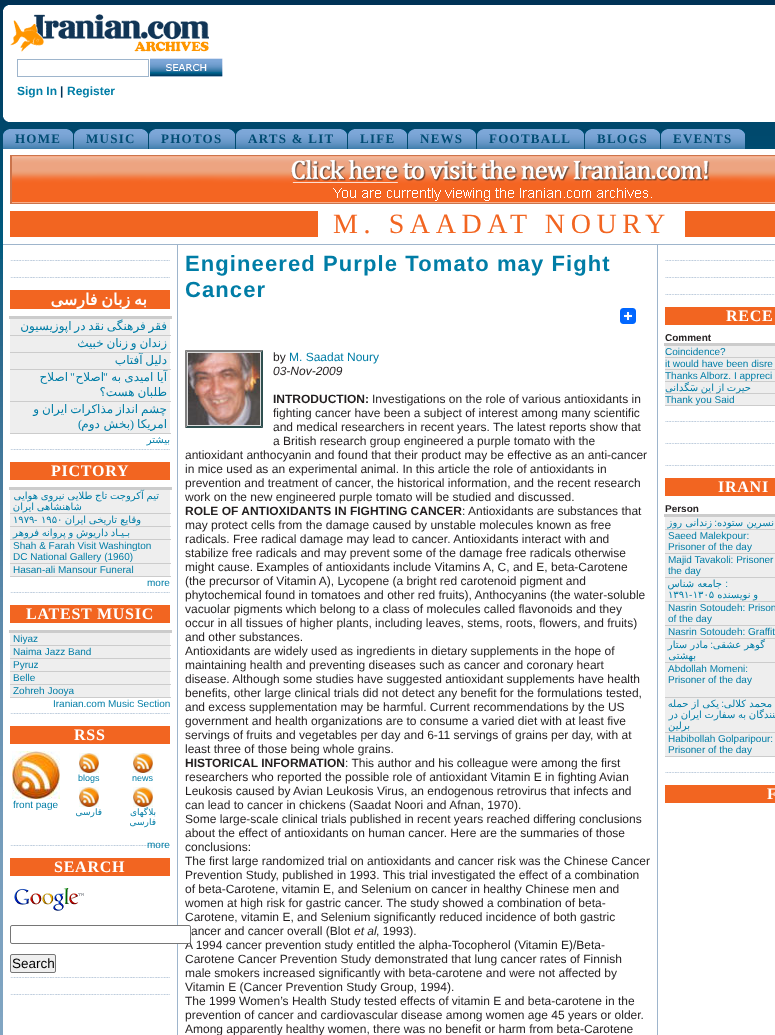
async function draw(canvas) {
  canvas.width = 775
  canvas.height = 1035
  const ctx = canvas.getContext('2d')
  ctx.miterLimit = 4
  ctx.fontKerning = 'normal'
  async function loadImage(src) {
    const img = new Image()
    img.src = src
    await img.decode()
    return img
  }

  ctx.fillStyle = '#fff'
  ctx.fillRect(0, 0, 775, 1035)
  ctx.drawImage(await loadImage('image0.png'), 0, 0, 775, 1035)
  ctx.fillRect(3, 5, 772, 117)
  ctx.drawImage(await loadImage('image1.png'), 3, 5, 5, 5)
  ctx.drawImage(await loadImage('image2.png'), 10, 14, 199, 38)
  ctx.strokeStyle = '#9eb5cc'
  ctx.strokeRect(17.5, 59.5, 131, 17)
  ctx.drawImage(await loadImage('image3.png'), 150, 58, 73, 19)
  ctx.font = 'bold 12px Liberation Sans'
  ctx.fillStyle = '#007da6'
  ctx.fillText('Sign In', 17, 95)
  ctx.fillStyle = '#003154'
  ctx.fillText('|', 60, 95)
  ctx.fillStyle = '#007da6'
  ctx.fillText('Register', 67, 95)
  ctx.drawImage(await loadImage('image4.png'), 3, 117, 5, 5)
  ctx.drawImage(await loadImage('image5.png'), 67, 129, 6, 20)
  ctx.drawImage(await loadImage('image6.png'), 3, 129, 64, 20)
  ctx.letterSpacing = '1.25px'
  ctx.font = 'bold 13px Liberation Serif'
  ctx.fillStyle = '#004c73'
  ctx.fillText('HOME', 15, 143)
  ctx.drawImage(await loadImage('image5.png'), 142, 129, 6, 20)
  ctx.drawImage(await loadImage('image7.png'), 74, 129, 68, 20)
  ctx.fillText('MUSIC', 86, 143)
  ctx.drawImage(await loadImage('image5.png'), 229, 129, 6, 20)
  ctx.drawImage(await loadImage('image8.png'), 149, 129, 80, 20)
  ctx.fillText('PHOTOS', 161, 143)
  ctx.drawImage(await loadImage('image5.png'), 341, 129, 6, 20)
  ctx.drawImage(await loadImage('image9.png'), 236, 129, 105, 20)
  ctx.fillText('ARTS & LIT', 248, 143)
  ctx.drawImage(await loadImage('image5.png'), 401, 129, 6, 20)
  ctx.drawImage(await loadImage('image10.png'), 348, 129, 53, 20)
  ctx.fillText('LIFE', 360, 143)
  ctx.drawImage(await loadImage('image5.png'), 470, 129, 6, 20)
  ctx.drawImage(await loadImage('image11.png'), 408, 129, 62, 20)
  ctx.fillText('NEWS', 420, 143)
  ctx.drawImage(await loadImage('image5.png'), 578, 129, 6, 20)
  ctx.drawImage(await loadImage('image12.png'), 477, 129, 101, 20)
  ctx.fillText('FOOTBALL', 489, 143)
  ctx.drawImage(await loadImage('image5.png'), 654, 129, 6, 20)
  ctx.drawImage(await loadImage('image13.png'), 585, 129, 69, 20)
  ctx.fillText('BLOGS', 597, 143)
  ctx.drawImage(await loadImage('image5.png'), 739, 129, 6, 20)
  ctx.drawImage(await loadImage('image14.png'), 661, 129, 78, 20)
  ctx.fillText('EVENTS', 673, 143)
  ctx.fillStyle = '#fff'
  ctx.fillRect(3, 245, 772, 790)
  ctx.fillRect(3, 149, 772, 95)
  ctx.fillStyle = '#9eb5cc'
  ctx.fillRect(3, 244, 772, 1)
  ctx.drawImage(await loadImage('image15.png'), 10, 155, 765, 49)
  ctx.fillStyle = '#f26521'
  ctx.fillRect(10, 211, 765, 26)
  ctx.fillStyle = '#fff'
  ctx.fillRect(318, 211, 367, 26)
  ctx.letterSpacing = '5.6px'
  ctx.font = '28px Liberation Serif'
  ctx.fillStyle = '#f26521'
  ctx.fillText('M. SAADAT NOURY', 333, 233)
  ctx.fillStyle = '#9eb5cc'
  ctx.fillRect(177, 245, 1, 790)
  ctx.drawImage(await loadImage('image16.png'), 10, 260, 160, 1)
  ctx.drawImage(await loadImage('image16.png'), 10, 277, 160, 1)
  ctx.drawImage(await loadImage('image16.png'), 10, 449, 160, 1)
  ctx.fillStyle = '#f26521'
  ctx.fillRect(10, 290, 160, 19)
  ctx.letterSpacing = '0.75px'
  ctx.wordSpacing = '-2px'
  ctx.direction = 'rtl'
  ctx.font = 'bold 16px DejaVu Sans'
  ctx.fillStyle = '#fff'
  ctx.fillText('به زبان فارسی', 147, 305)
  ctx.fillStyle = '#ccc'
  ctx.fillRect(9, 316, 163, 3)
  ctx.fillStyle = '#eee'
  ctx.fillRect(10, 319, 160, 16)
  ctx.fillStyle = '#ccc'
  ctx.fillRect(10, 335, 161, 1)
  ctx.letterSpacing = '0px'
  ctx.wordSpacing = '-1px'
  ctx.font = '12px DejaVu Sans'
  ctx.fillStyle = '#007da6'
  ctx.fillText('فقر فرهنگی نقد در اپوزیسیون', 167, 330)
  ctx.fillStyle = '#eee'
  ctx.fillRect(10, 336, 160, 16)
  ctx.fillStyle = '#ccc'
  ctx.fillRect(10, 352, 161, 1)
  ctx.fillStyle = '#007da6'
  ctx.fillText('زندان و زنان خبیث', 167, 347)
  ctx.fillStyle = '#eee'
  ctx.fillRect(10, 353, 160, 16)
  ctx.fillStyle = '#ccc'
  ctx.fillRect(10, 369, 161, 1)
  ctx.fillStyle = '#007da6'
  ctx.fillText('دلیل آفتاب', 167, 364)
  ctx.fillStyle = '#eee'
  ctx.fillRect(10, 370, 160, 31)
  ctx.fillStyle = '#ccc'
  ctx.fillRect(10, 401, 161, 1)
  ctx.wordSpacing = '0px'
  ctx.fillStyle = '#007da6'
  ctx.fillText('اصلاح', 68, 381)
  ctx.font = '12px Liberation Serif'
  ctx.fillText('"', 75, 381)
  ctx.font = '12px DejaVu Sans'
  ctx.fillText('اصلاح', 104, 381)
  ctx.font = '12px Liberation Serif'
  ctx.fillText('"', 108, 381)
  ctx.wordSpacing = '-0.5px'
  ctx.font = '12px DejaVu Sans'
  ctx.fillText('آیا امیدی به', 167, 381)
  ctx.wordSpacing = '-1px'
  ctx.fillText('طلبان هست؟', 167, 396)
  ctx.fillStyle = '#eee'
  ctx.fillRect(10, 402, 160, 31)
  ctx.fillStyle = '#ccc'
  ctx.fillRect(10, 433, 161, 1)
  ctx.fillStyle = '#007da6'
  ctx.fillText('چشم انداز مذاکرات ایران و', 167, 413)
  ctx.wordSpacing = '0px'
  ctx.font = '12px Liberation Serif'
  ctx.fillText(')', 82, 428)
  ctx.font = '12px DejaVu Sans'
  ctx.fillText('بخش دوم', 130, 428)
  ctx.font = '12px Liberation Serif'
  ctx.fillText('(', 134, 428)
  ctx.font = '12px DejaVu Sans'
  ctx.fillText('امریکا', 167, 428)
  ctx.font = '10px DejaVu Sans'
  ctx.fillText('بیشتر', 170, 443)
  ctx.drawImage(await loadImage('image16.png'), 10, 592, 160, 1)
  ctx.fillStyle = '#f26521'
  ctx.fillRect(10, 462, 160, 18)
  ctx.letterSpacing = '0.75px'
  ctx.direction = 'ltr'
  ctx.font = 'bold 16px Liberation Serif'
  ctx.fillStyle = '#fff'
  ctx.fillText('PICTORY', 51, 476)
  ctx.fillStyle = '#ccc'
  ctx.fillRect(9, 487, 163, 3)
  ctx.fillStyle = '#eee'
  ctx.fillRect(10, 490, 160, 23)
  ctx.fillStyle = '#ccc'
  ctx.fillRect(10, 513, 161, 1)
  ctx.letterSpacing = '0px'
  ctx.wordSpacing = '-0.5px'
  ctx.direction = 'rtl'
  ctx.font = '10px DejaVu Sans'
  ctx.fillStyle = '#007da6'
  ctx.fillText('تیم آکروجت تاج طلایی نیروی هوایی', 159, 499)
  ctx.fillText('شاهنشاهی ایران', 82, 510)
  ctx.fillStyle = '#eee'
  ctx.fillRect(10, 514, 160, 12)
  ctx.fillStyle = '#ccc'
  ctx.fillRect(10, 526, 161, 1)
  ctx.wordSpacing = '0px'
  ctx.direction = 'ltr'
  ctx.fillStyle = '#007da6'
  ctx.fillText('۱۹۷۹', 13, 523)
  ctx.font = '10px Liberation Sans'
  ctx.fillText('-', 34, 523)
  ctx.font = '10px DejaVu Sans'
  ctx.fillText('۱۹۵۰', 41, 523)
  ctx.direction = 'rtl'
  ctx.fillText('ایران', 86, 523)
  ctx.fillText('وقایع تاریخی', 141, 523)
  ctx.fillStyle = '#eee'
  ctx.fillRect(10, 527, 160, 12)
  ctx.fillStyle = '#ccc'
  ctx.fillRect(10, 539, 161, 1)
  ctx.wordSpacing = '-0.5px'
  ctx.fillStyle = '#007da6'
  ctx.fillText('بـیـاد داریوش و پروانه فروهر', 130, 536)
  ctx.fillStyle = '#eee'
  ctx.fillRect(10, 540, 160, 23)
  ctx.fillStyle = '#ccc'
  ctx.fillRect(10, 563, 161, 1)
  ctx.wordSpacing = '0px'
  ctx.direction = 'ltr'
  ctx.font = '10px Liberation Sans'
  ctx.fillStyle = '#007da6'
  ctx.fillText('Shah & Farah Visit Washington', 13, 549)
  ctx.fillText('DC National Gallery (1960)', 13, 560)
  ctx.fillStyle = '#eee'
  ctx.fillRect(10, 564, 160, 12)
  ctx.fillStyle = '#ccc'
  ctx.fillRect(10, 576, 161, 1)
  ctx.fillStyle = '#007da6'
  ctx.fillText('Hasan-ali Mansour Funeral', 13, 573)
  ctx.fillText('more', 147, 586)
  ctx.drawImage(await loadImage('image16.png'), 10, 713, 160, 1)
  ctx.fillStyle = '#f26521'
  ctx.fillRect(10, 605, 160, 18)
  ctx.letterSpacing = '0.75px'
  ctx.font = 'bold 16px Liberation Serif'
  ctx.fillStyle = '#fff'
  ctx.fillText('LATEST MUSIC', 26, 619)
  ctx.fillStyle = '#ccc'
  ctx.fillRect(9, 630, 163, 3)
  ctx.fillStyle = '#eee'
  ctx.fillRect(10, 633, 160, 12)
  ctx.fillStyle = '#ccc'
  ctx.fillRect(10, 645, 161, 1)
  ctx.letterSpacing = '0px'
  ctx.font = '10px Liberation Sans'
  ctx.fillStyle = '#007da6'
  ctx.fillText('Niyaz', 13, 642)
  ctx.fillStyle = '#eee'
  ctx.fillRect(10, 646, 160, 12)
  ctx.fillStyle = '#ccc'
  ctx.fillRect(10, 658, 161, 1)
  ctx.fillStyle = '#007da6'
  ctx.fillText('Naima Jazz Band', 13, 655)
  ctx.fillStyle = '#eee'
  ctx.fillRect(10, 659, 160, 12)
  ctx.fillStyle = '#ccc'
  ctx.fillRect(10, 671, 161, 1)
  ctx.fillStyle = '#007da6'
  ctx.fillText('Pyruz', 13, 668)
  ctx.fillStyle = '#eee'
  ctx.fillRect(10, 672, 160, 12)
  ctx.fillStyle = '#ccc'
  ctx.fillRect(10, 684, 161, 1)
  ctx.fillStyle = '#007da6'
  ctx.fillText('Belle', 13, 681)
  ctx.fillStyle = '#eee'
  ctx.fillRect(10, 685, 160, 12)
  ctx.fillStyle = '#ccc'
  ctx.fillRect(10, 697, 161, 1)
  ctx.fillStyle = '#007da6'
  ctx.fillText('Zohreh Jooya', 13, 694)
  ctx.fillText('Iranian.com Music Section', 53, 707)
  ctx.drawImage(await loadImage('image16.png'), 10, 845, 160, 1)
  ctx.fillStyle = '#f26521'
  ctx.fillRect(10, 726, 160, 18)
  ctx.letterSpacing = '0.75px'
  ctx.font = 'bold 16px Liberation Serif'
  ctx.fillStyle = '#fff'
  ctx.fillText('RSS', 74, 740)
  ctx.drawImage(await loadImage('image17.png'), 79, 753, 20, 20)
  ctx.letterSpacing = '0px'
  ctx.font = '9px Liberation Sans'
  ctx.fillStyle = '#007da6'
  ctx.fillText('blogs', 78, 781)
  ctx.drawImage(await loadImage('image18.png'), 133, 753, 20, 20)
  ctx.fillText('news', 132, 781)
  ctx.drawImage(await loadImage('image19.png'), 12, 751, 48, 48)
  ctx.font = '10px Liberation Sans'
  ctx.fillText('front page', 13, 808)
  ctx.drawImage(await loadImage('image20.png'), 79, 787, 20, 20)
  ctx.direction = 'rtl'
  ctx.font = '9px DejaVu Sans'
  ctx.fillText('فارسی', 102, 815)
  ctx.drawImage(await loadImage('image21.png'), 133, 787, 20, 20)
  ctx.fillText('بلاگهای', 156, 815)
  ctx.fillText('فارسی', 156, 825)
  ctx.direction = 'ltr'
  ctx.font = '10px Liberation Sans'
  ctx.fillText('more', 147, 848)
  ctx.drawImage(await loadImage('image16.png'), 10, 977, 160, 1)
  ctx.fillStyle = '#f26521'
  ctx.fillRect(10, 858, 160, 18)
  ctx.letterSpacing = '0.75px'
  ctx.font = 'bold 16px Liberation Serif'
  ctx.fillStyle = '#fff'
  ctx.fillText('SEARCH', 54, 872)
  ctx.drawImage(await loadImage('image22.png'), 14, 888, 70, 23)
  ctx.letterSpacing = '0px'
  ctx.font = '12px Liberation Sans'
  ctx.fillStyle = '#221e1f'
  ctx.fillText('A 1994 cancer prevention study entitled the alpha-Tocopherol (Vitamin E)/Beta-', 185, 949)
  ctx.fillStyle = '#fff'
  ctx.beginPath()
  ctx.roundRect(10.5, 925.5, 180, 18, 1.5)
  ctx.fill()
  ctx.strokeStyle = '#767676'
  ctx.stroke()
  ctx.fillStyle = '#efefef'
  ctx.beginPath()
  ctx.roundRect(10.5, 954.5, 45, 18, 1.5)
  ctx.fill()
  ctx.stroke()
  ctx.font = '13.5px Liberation Sans'
  ctx.fillStyle = '#000'
  ctx.fillText('Search', 12, 968)
  ctx.drawImage(await loadImage('image16.png'), 10, 994, 160, 1)
  ctx.fillStyle = '#9eb5cc'
  ctx.fillRect(657, 245, 1, 790)
  ctx.letterSpacing = '1.1px'
  ctx.font = 'bold 22px Liberation Sans'
  ctx.fillStyle = '#007da6'
  ctx.fillText('Engineered Purple Tomato may Fight', 185, 271)
  ctx.fillText('Cancer', 185, 297)
  ctx.drawImage(await loadImage('image23.png'), 620, 308, 16, 16)
  ctx.fillStyle = '#dcdcdc'
  ctx.fillRect(185, 350, 78, 78)
  ctx.fillStyle = '#808080'
  ctx.beginPath()
  ctx.moveTo(185, 350)
  ctx.lineTo(263, 350)
  ctx.lineTo(261, 352)
  ctx.lineTo(187, 352)
  ctx.closePath()
  ctx.fill()
  ctx.fillStyle = '#2f4f4f'
  ctx.beginPath()
  ctx.moveTo(263, 350)
  ctx.lineTo(263, 428)
  ctx.lineTo(261, 426)
  ctx.lineTo(261, 352)
  ctx.closePath()
  ctx.fill()
  ctx.beginPath()
  ctx.moveTo(263, 428)
  ctx.lineTo(185, 428)
  ctx.lineTo(187, 426)
  ctx.lineTo(261, 426)
  ctx.closePath()
  ctx.fill()
  ctx.fillStyle = '#808080'
  ctx.beginPath()
  ctx.moveTo(185, 428)
  ctx.lineTo(185, 350)
  ctx.lineTo(187, 352)
  ctx.lineTo(187, 426)
  ctx.closePath()
  ctx.fill()
  ctx.drawImage(await loadImage('image24.png'), 188, 353, 72, 72)
  ctx.letterSpacing = '0px'
  ctx.font = '12px Liberation Sans'
  ctx.fillStyle = '#221e1f'
  ctx.fillText('by', 273, 361)
  ctx.fillStyle = '#007da6'
  ctx.fillText('M. Saadat Noury', 289, 361)
  ctx.font = 'italic 12px Liberation Sans'
  ctx.fillStyle = '#221e1f'
  ctx.fillText('03-Nov-2009', 273, 375)
  ctx.font = 'bold 12px Liberation Sans'
  ctx.fillText('INTRODUCTION:', 273, 403)
  ctx.font = '12px Liberation Sans'
  ctx.fillText('Investigations on the role of various antioxidants in', 372, 403)
  ctx.fillText('fighting cancer have been a subject of interest among many scientific', 273, 417)
  ctx.fillText('and medical researchers in recent years. The latest reports show that', 273, 431)
  ctx.fillText('a British research group engineered a purple tomato with the', 273, 445)
  ctx.fillText('antioxidant anthocyanin and found that their product may be effective as an anti-cancer', 185, 459)
  ctx.fillText('in mice used as an experimental animal. In this article the role of antioxidants in', 185, 473)
  ctx.fillText('prevention and treatment of cancer, the historical information, and the recent research', 185, 487)
  ctx.fillText('work on the new engineered purple tomato will be studied and discussed.', 185, 501)
  ctx.font = 'bold 12px Liberation Sans'
  ctx.fillText('ROLE OF ANTIOXIDANTS IN FIGHTING CANCER', 185, 515)
  ctx.font = '12px Liberation Sans'
  ctx.fillText(': Antioxidants are substances that', 462, 515)
  ctx.fillText('may protect cells from the damage caused by unstable molecules known as free', 185, 529)
  ctx.fillText('radicals. Free radical damage may lead to cancer. Antioxidants interact with and', 185, 543)
  ctx.fillText('stabilize free radicals and may prevent some of the damage free radicals otherwise', 185, 557)
  ctx.fillText('might cause. Examples of antioxidants include Vitamins A, C, and E, beta-Carotene', 185, 571)
  ctx.fillText('(the precursor of Vitamin A), Lycopene (a bright red carotenoid pigment and', 185, 585)
  ctx.fillText('phytochemical found in tomatoes and other red fruits), Anthocyanins (the water-soluble', 185, 599)
  ctx.fillText('vacuolar pigments which belong to a class of molecules called flavonoids and they', 185, 613)
  ctx.fillText('occur in all tissues of higher plants, including leaves, stems, roots, flowers, and fruits)', 185, 627)
  ctx.fillText('and other substances.', 185, 641)
  ctx.fillText('Antioxidants are widely used as ingredients in dietary supplements in the hope of', 185, 655)
  ctx.fillText('maintaining health and preventing diseases such as cancer and coronary heart', 185, 669)
  ctx.fillText('disease. Although some studies have suggested antioxidant supplements have health', 185, 683)
  ctx.fillText('benefits, other large clinical trials did not detect any benefit for the formulations tested,', 185, 697)
  ctx.fillText('and excess supplementation may be harmful. Current recommendations by the US', 185, 711)
  ctx.fillText('government and health organizations are to consume a varied diet with at least five', 185, 725)
  ctx.fillText('servings of fruits and vegetables per day and 6-11 servings of grains per day, with at', 185, 739)
  ctx.fillText('least three of those being whole grains.', 185, 753)
  ctx.font = 'bold 12px Liberation Sans'
  ctx.fillText('HISTORICAL INFORMATION', 185, 767)
  ctx.font = '12px Liberation Sans'
  ctx.fillText(': This author and his colleague were among the first', 345, 767)
  ctx.fillText('researchers who reported the possible role of antioxidant Vitamin E in fighting Avian', 185, 781)
  ctx.fillText('Leukosis caused by Avian Leukosis Virus, an endogenous retrovirus that infects and', 185, 795)
  ctx.fillText('can lead to cancer in chickens (Saadat Noori and Afnan, 1970).', 185, 809)
  ctx.fillText('Some large-scale clinical trials published in recent years reached differing conclusions', 185, 823)
  ctx.fillText('about the effect of antioxidants on human cancer. Here are the summaries of those', 185, 837)
  ctx.fillText('conclusions:', 185, 851)
  ctx.fillText('The first large randomized trial on antioxidants and cancer risk was the Chinese Cancer', 185, 865)
  ctx.fillText('Prevention Study, published in 1993. This trial investigated the effect of a combination', 185, 879)
  ctx.fillText('of beta-Carotene, vitamin E, and Selenium on cancer in healthy Chinese men and', 185, 893)
  ctx.fillText('women at high risk for gastric cancer. The study showed a combination of beta-', 185, 907)
  ctx.fillText('Carotene, vitamin E, and Selenium significantly reduced incidence of both gastric', 185, 921)
  ctx.fillText('ancer and cancer overall (Blot', 191, 935)
  ctx.font = 'italic 12px Liberation Sans'
  ctx.fillText('et al', 354, 935)
  ctx.font = '12px Liberation Sans'
  ctx.fillText(', 1993).', 376, 935)
  ctx.fillText('Carotene Cancer Prevention Study demonstrated that lung cancer rates of Finnish', 185, 963)
  ctx.fillText('male smokers increased significantly with beta-carotene and were not affected by', 185, 977)
  ctx.fillText('Vitamin E (Cancer Prevention Study Group, 1994).', 185, 991)
  ctx.fillText('The 1999 Women’s Health Study tested effects of vitamin E and beta-carotene in the', 185, 1005)
  ctx.fillText('prevention of cancer and cardiovascular disease among women age 45 years or older.', 185, 1019)
  ctx.fillText('Among apparently healthy women, there was no benefit or harm from beta-Carotene', 185, 1033)
  ctx.drawImage(await loadImage('image25.png'), 665, 260, 110, 1)
  ctx.drawImage(await loadImage('image25.png'), 665, 277, 110, 1)
  ctx.drawImage(await loadImage('image25.png'), 665, 294, 110, 1)
  ctx.drawImage(await loadImage('image25.png'), 665, 421, 110, 1)
  ctx.fillStyle = '#f26521'
  ctx.fillRect(665, 307, 110, 18)
  ctx.letterSpacing = '0.75px'
  ctx.font = 'bold 16px Liberation Serif'
  ctx.fillStyle = '#fff'
  ctx.fillText('RECE', 726, 321)
  ctx.fillStyle = '#ccc'
  ctx.fillRect(664, 343, 111, 3)
  ctx.letterSpacing = '0px'
  ctx.font = 'bold 10px Liberation Sans'
  ctx.fillStyle = '#221e1f'
  ctx.fillText('Comment', 665, 341)
  ctx.fillStyle = '#eee'
  ctx.fillRect(665, 346, 110, 11)
  ctx.fillStyle = '#ccc'
  ctx.fillRect(665, 357, 110, 1)
  ctx.font = '10px Liberation Sans'
  ctx.fillStyle = '#007da6'
  ctx.fillText('Coincidence?', 665, 355)
  ctx.fillStyle = '#eee'
  ctx.fillRect(665, 358, 110, 11)
  ctx.fillStyle = '#ccc'
  ctx.fillRect(665, 369, 110, 1)
  ctx.fillStyle = '#007da6'
  ctx.fillText('it would have been disre', 665, 367)
  ctx.fillStyle = '#eee'
  ctx.fillRect(665, 370, 110, 11)
  ctx.fillStyle = '#ccc'
  ctx.fillRect(665, 381, 110, 1)
  ctx.fillStyle = '#007da6'
  ctx.fillText('Thanks Alborz. I appreci', 665, 379)
  ctx.fillStyle = '#eee'
  ctx.fillRect(665, 382, 110, 11)
  ctx.fillStyle = '#ccc'
  ctx.fillRect(665, 393, 110, 1)
  ctx.wordSpacing = '-0.5px'
  ctx.direction = 'rtl'
  ctx.font = '10px DejaVu Sans'
  ctx.fillStyle = '#007da6'
  ctx.fillText('حیرت از این سَگدانی', 751, 391)
  ctx.fillStyle = '#eee'
  ctx.fillRect(665, 394, 110, 11)
  ctx.fillStyle = '#ccc'
  ctx.fillRect(665, 405, 110, 1)
  ctx.wordSpacing = '0px'
  ctx.direction = 'ltr'
  ctx.font = '10px Liberation Sans'
  ctx.fillStyle = '#007da6'
  ctx.fillText('Thank you Said', 665, 403)
  ctx.drawImage(await loadImage('image25.png'), 665, 443, 110, 1)
  ctx.drawImage(await loadImage('image25.png'), 665, 465, 110, 1)
  ctx.drawImage(await loadImage('image25.png'), 665, 772, 110, 1)
  ctx.fillStyle = '#f26521'
  ctx.fillRect(665, 478, 110, 18)
  ctx.letterSpacing = '0.75px'
  ctx.font = 'bold 16px Liberation Serif'
  ctx.fillStyle = '#fff'
  ctx.fillText('IRANI', 718, 492)
  ctx.fillStyle = '#ccc'
  ctx.fillRect(664, 514, 111, 3)
  ctx.letterSpacing = '0px'
  ctx.font = 'bold 10px Liberation Sans'
  ctx.fillStyle = '#221e1f'
  ctx.fillText('Person', 665, 512)
  ctx.fillStyle = '#eee'
  ctx.fillRect(665, 517, 110, 12)
  ctx.fillStyle = '#ccc'
  ctx.fillRect(665, 529, 110, 1)
  ctx.direction = 'rtl'
  ctx.font = '10px DejaVu Sans'
  ctx.fillStyle = '#007da6'
  ctx.fillText('زندانی روز', 712, 526)
  ctx.font = '10px Liberation Sans'
  ctx.fillText(':', 717, 526)
  ctx.font = '10px DejaVu Sans'
  ctx.fillText('نسرین ستوده', 774, 526)
  ctx.fillStyle = '#eee'
  ctx.fillRect(665, 530, 110, 23)
  ctx.fillStyle = '#ccc'
  ctx.fillRect(665, 553, 110, 1)
  ctx.direction = 'ltr'
  ctx.font = '10px Liberation Sans'
  ctx.fillStyle = '#007da6'
  ctx.fillText('Saeed Malekpour:', 668, 539)
  ctx.fillText('Prisoner of the day', 668, 550)
  ctx.fillStyle = '#eee'
  ctx.fillRect(665, 554, 110, 23)
  ctx.fillStyle = '#ccc'
  ctx.fillRect(665, 577, 110, 1)
  ctx.fillStyle = '#007da6'
  ctx.fillText('Majid Tavakoli: Prisoner', 668, 563)
  ctx.fillText('the day', 668, 574)
  ctx.fillStyle = '#eee'
  ctx.fillRect(665, 578, 110, 23)
  ctx.fillStyle = '#ccc'
  ctx.fillRect(665, 601, 110, 1)
  ctx.direction = 'rtl'
  ctx.font = '10px DejaVu Sans'
  ctx.fillStyle = '#007da6'
  ctx.fillText('جامعه شناس', 722, 587)
  ctx.font = '10px Liberation Sans'
  ctx.fillText(':', 728, 587)
  ctx.direction = 'ltr'
  ctx.font = '10px DejaVu Sans'
  ctx.fillText('۱۳۹۱ ۱۳۰۵', 668, 598)
  ctx.wordSpacing = '-0.5px'
  ctx.direction = 'rtl'
  ctx.fillText('و نویسنده', 758, 598)
  ctx.wordSpacing = '0px'
  ctx.direction = 'ltr'
  ctx.font = '10px Liberation Sans'
  ctx.fillText('-', 689, 598)
  ctx.fillStyle = '#eee'
  ctx.fillRect(665, 602, 110, 23)
  ctx.fillStyle = '#ccc'
  ctx.fillRect(665, 625, 110, 1)
  ctx.fillStyle = '#007da6'
  ctx.fillText('Nasrin Sotoudeh: Prison', 668, 611)
  ctx.fillText('of the day', 668, 622)
  ctx.fillStyle = '#eee'
  ctx.fillRect(665, 626, 110, 12)
  ctx.fillStyle = '#ccc'
  ctx.fillRect(665, 638, 110, 1)
  ctx.fillStyle = '#007da6'
  ctx.fillText('Nasrin Sotoudeh: Graffit', 668, 635)
  ctx.fillStyle = '#eee'
  ctx.fillRect(665, 639, 110, 23)
  ctx.fillStyle = '#ccc'
  ctx.fillRect(665, 662, 110, 1)
  ctx.direction = 'rtl'
  ctx.font = '10px DejaVu Sans'
  ctx.fillStyle = '#007da6'
  ctx.fillText('مادر ستار', 708, 648)
  ctx.font = '10px Liberation Sans'
  ctx.fillText(':', 713, 648)
  ctx.font = '10px DejaVu Sans'
  ctx.fillText('گوهر عشقی', 765, 648)
  ctx.fillText('بهشتی', 696, 659)
  ctx.fillStyle = '#eee'
  ctx.fillRect(665, 663, 110, 34)
  ctx.fillStyle = '#ccc'
  ctx.fillRect(665, 697, 110, 1)
  ctx.direction = 'ltr'
  ctx.font = '10px Liberation Sans'
  ctx.fillStyle = '#007da6'
  ctx.fillText('Abdollah Momeni:', 668, 672)
  ctx.fillText('Prisoner of the day', 668, 683)
  ctx.fillStyle = '#eee'
  ctx.fillRect(665, 698, 110, 34)
  ctx.fillStyle = '#ccc'
  ctx.fillRect(665, 732, 110, 1)
  ctx.direction = 'rtl'
  ctx.font = '10px DejaVu Sans'
  ctx.fillStyle = '#007da6'
  ctx.fillText('یکی از حمله', 719, 707)
  ctx.font = '10px Liberation Sans'
  ctx.fillText(':', 724, 707)
  ctx.font = '10px DejaVu Sans'
  ctx.fillText('محمد کلالی', 772, 707)
  ctx.wordSpacing = '-0.5px'
  ctx.fillText('کنندگان به سفارت ایران در', 780, 718)
  ctx.wordSpacing = '0px'
  ctx.fillText('برلین', 690, 729)
  ctx.fillStyle = '#eee'
  ctx.fillRect(665, 733, 110, 23)
  ctx.fillStyle = '#ccc'
  ctx.fillRect(665, 756, 110, 1)
  ctx.direction = 'ltr'
  ctx.font = '10px Liberation Sans'
  ctx.fillStyle = '#007da6'
  ctx.fillText('Habibollah Golparipour:', 668, 742)
  ctx.fillText('Prisoner of the day', 668, 753)
  ctx.fillStyle = '#f26521'
  ctx.fillRect(665, 785, 110, 18)
  ctx.letterSpacing = '0.75px'
  ctx.font = 'bold 16px Liberation Serif'
  ctx.fillStyle = '#fff'
  ctx.fillText('F', 767, 799)
}

draw(document.querySelector('canvas'))
